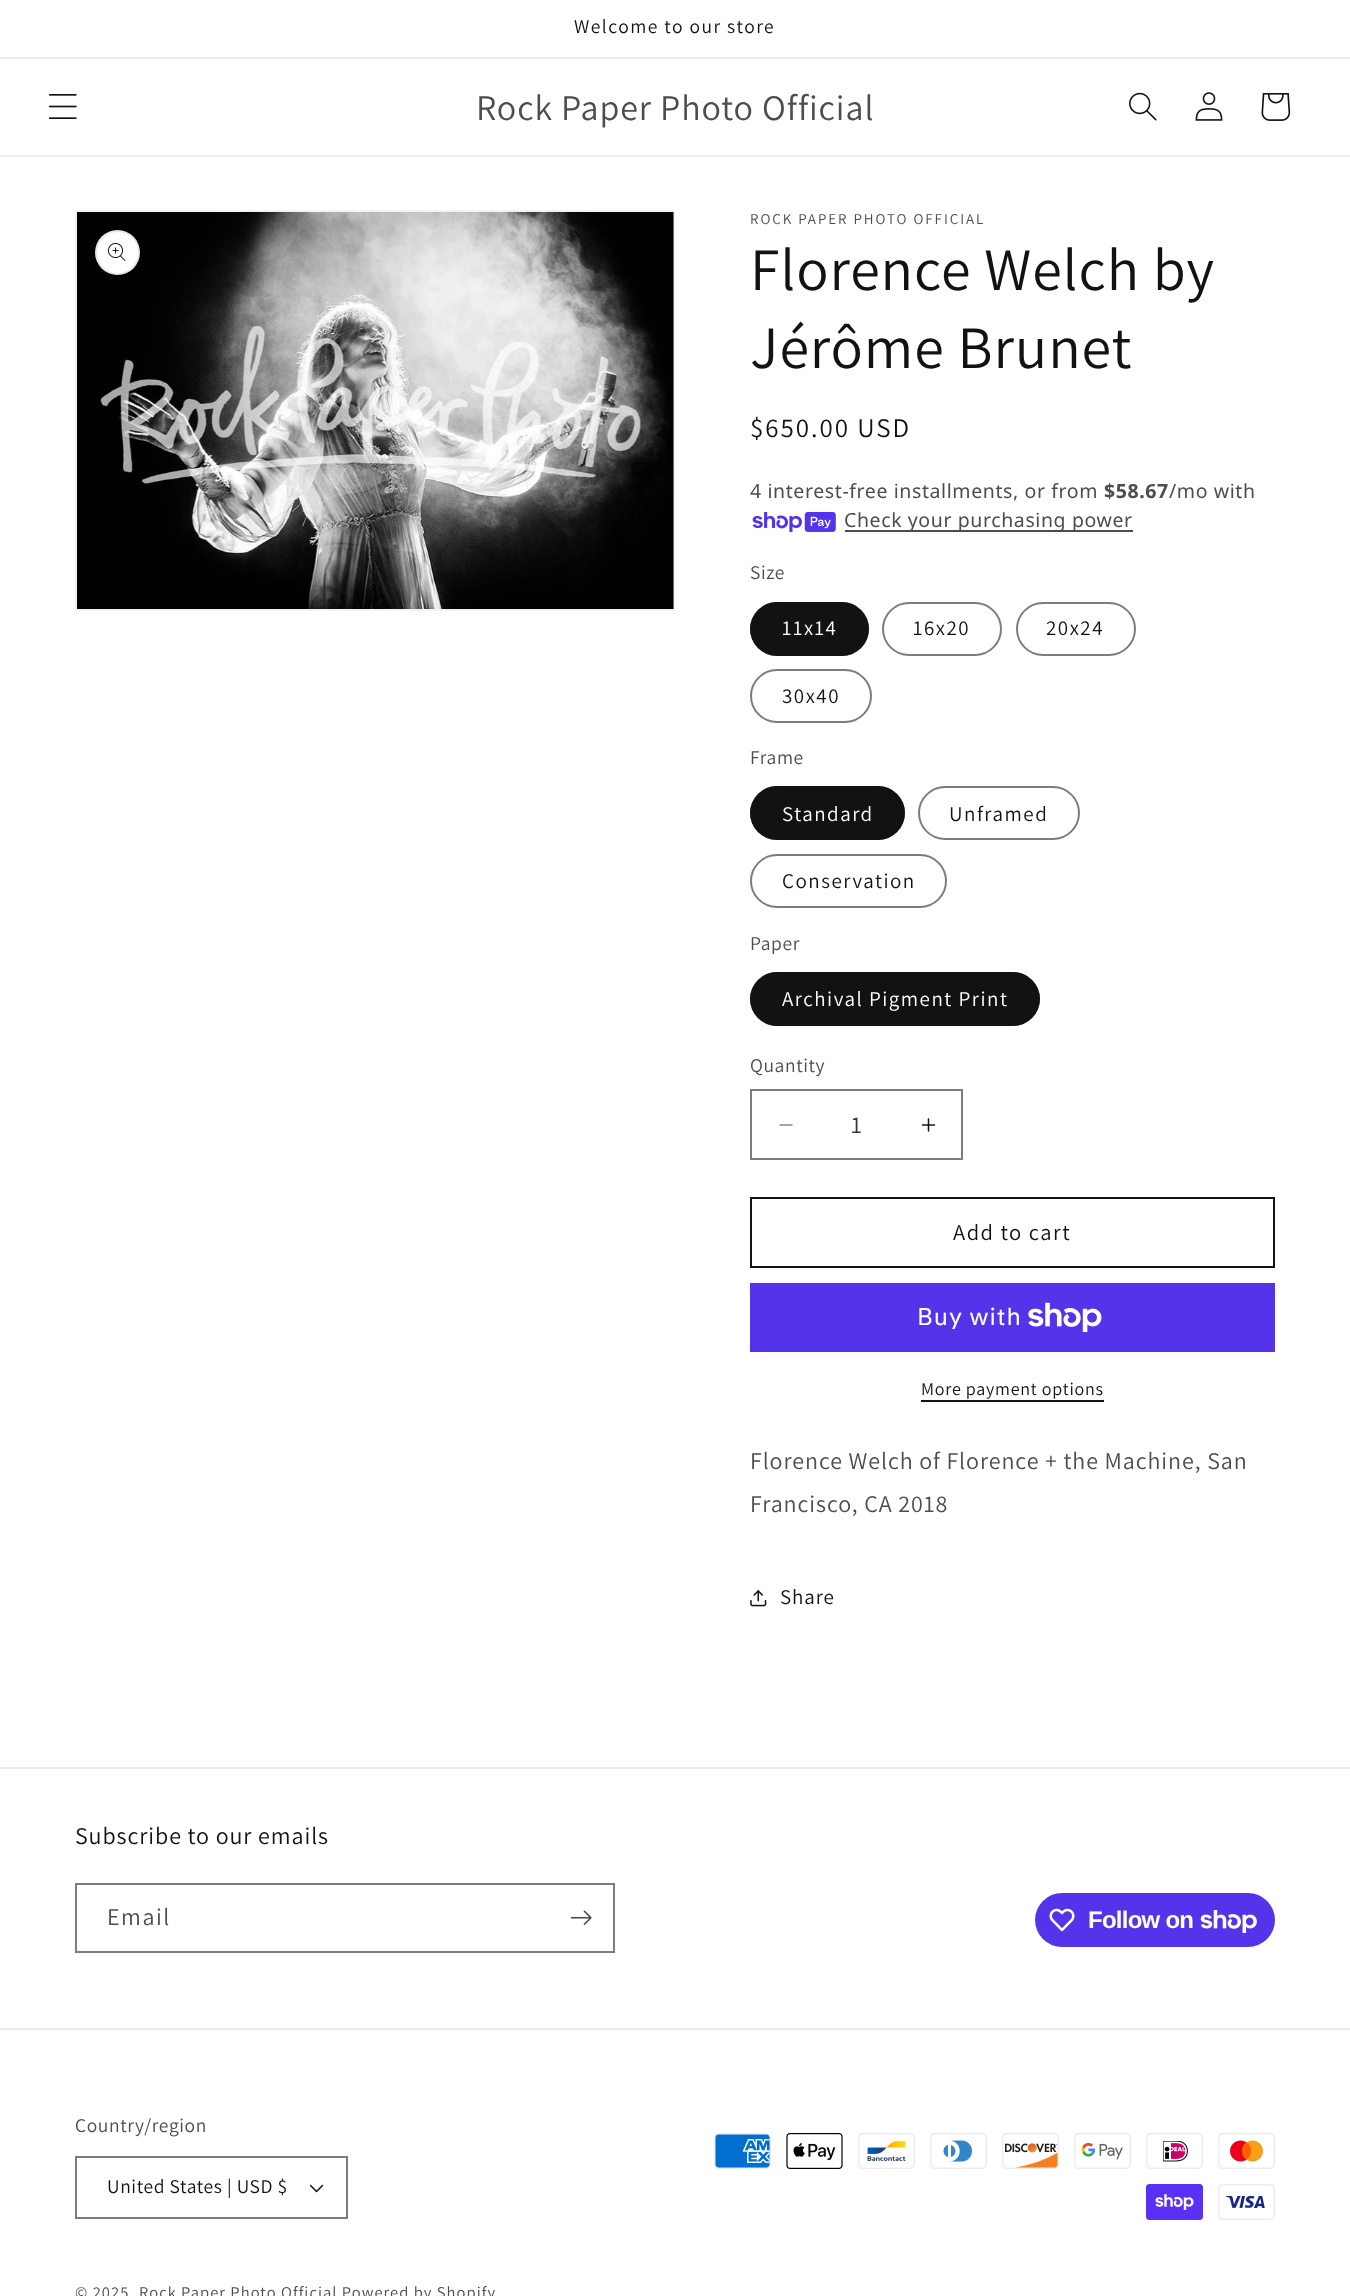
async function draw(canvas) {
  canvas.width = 1350
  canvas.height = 2296
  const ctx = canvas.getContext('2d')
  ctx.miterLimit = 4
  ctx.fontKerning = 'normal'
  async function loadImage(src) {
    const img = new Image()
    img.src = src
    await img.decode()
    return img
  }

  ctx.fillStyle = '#fff'
  ctx.fillRect(0, 0, 1350, 2296)
  ctx.fillStyle = '#ececec'
  ctx.fillRect(0, 57, 1350, 2)
  ctx.letterSpacing = '1.5px'
  ctx.font = '19.5px Assistant'
  ctx.fillStyle = '#121212'
  ctx.fillText('Welcome to our store', 574, 33)
  ctx.fillStyle = '#ececec'
  ctx.fillRect(0, 155, 1350, 2)
  ctx.drawImage(await loadImage('image0.png'), 48, 94, 29, 25)
  ctx.letterSpacing = '0.9px'
  ctx.font = '36px Assistant'
  ctx.fillStyle = '#4d4d4d'
  ctx.fillText('Rock Paper Photo Official', 476, 120)
  ctx.drawImage(await loadImage('image1.png'), 1129, 92, 28, 29)
  ctx.drawImage(await loadImage('image2.png'), 1195, 92, 28, 29)
  ctx.drawImage(await loadImage('image3.png'), 1261, 93, 30, 28)
  ctx.strokeStyle = '#f3f3f3'
  ctx.lineWidth = 2
  ctx.strokeRect(76, 211, 598, 399)
  ctx.drawImage(await loadImage('image4.png'), 77, 212, 597, 397)
  ctx.fillStyle = '#fff'
  ctx.beginPath()
  ctx.arc(117.5, 252.5, 22.5, 0, 2 * Math.PI)
  ctx.fill()
  ctx.beginPath()
  ctx.arc(117.5, 252.5, 21.5, 0, 2 * Math.PI)
  ctx.strokeStyle = '#1212121a'
  ctx.stroke()
  ctx.drawImage(await loadImage('image5.png'), 108, 243, 18, 18)
  ctx.letterSpacing = '1.95px'
  ctx.font = '15px Assistant'
  ctx.fillStyle = '#4d4d4d'
  ctx.fillText('ROCK PAPER PHOTO OFFICIAL', 750, 224)
  ctx.letterSpacing = '0.9px'
  ctx.font = '60px Assistant'
  ctx.fillStyle = '#121212'
  ctx.fillText('Florence Welch by', 750, 290)
  ctx.fillText('Jérôme Brunet', 750, 368)
  ctx.letterSpacing = '1.95px'
  ctx.font = '27px Assistant'
  ctx.fillText('$650.00 USD', 750, 437)
  ctx.letterSpacing = '0.6px'
  ctx.font = '19.5px Noto Sans'
  ctx.fillStyle = '#4d4d4d'
  ctx.fillText('4 interest-free installments, or from', 750, 498)
  ctx.font = 'bold 19.5px Noto Sans'
  ctx.fillText('$58.67', 1104, 498)
  ctx.font = '19.5px Noto Sans'
  ctx.fillText('/mo with', 1169, 498)
  ctx.drawImage(await loadImage('image6.png'), 752, 512, 84, 21)
  ctx.fillRect(845, 530, 288, 2)
  ctx.fillText('Check your purchasing power', 844, 527)
  ctx.font = '19.5px Assistant'
  ctx.fillText('Size', 750, 579)
  ctx.fillStyle = '#121212'
  ctx.beginPath()
  ctx.roundRect(750, 602, 119, 54, 27)
  ctx.fill()
  ctx.beginPath()
  ctx.roundRect(751, 603, 117, 52, 26)
  ctx.strokeStyle = '#1212128c'
  ctx.stroke()
  ctx.letterSpacing = '1.5px'
  ctx.font = '21px Assistant'
  ctx.fillStyle = '#fff'
  ctx.fillText('11x14', 782, 635)
  ctx.beginPath()
  ctx.roundRect(883, 603, 118, 52, 26)
  ctx.strokeStyle = '#7d7d7d'
  ctx.stroke()
  ctx.fillStyle = '#121212'
  ctx.fillText('16x20', 913, 635)
  ctx.beginPath()
  ctx.roundRect(1017, 603, 118, 52, 26)
  ctx.stroke()
  ctx.fillText('20x24', 1046, 635)
  ctx.beginPath()
  ctx.roundRect(751, 670, 120, 52, 26)
  ctx.stroke()
  ctx.fillText('30x40', 782, 703)
  ctx.letterSpacing = '0.6px'
  ctx.font = '19.5px Assistant'
  ctx.fillStyle = '#4d4d4d'
  ctx.fillText('Frame', 750, 764)
  ctx.fillStyle = '#121212'
  ctx.beginPath()
  ctx.roundRect(750, 786, 155, 54, 27)
  ctx.fill()
  ctx.beginPath()
  ctx.roundRect(751, 787, 153, 52, 26)
  ctx.strokeStyle = '#1212128c'
  ctx.stroke()
  ctx.letterSpacing = '1.5px'
  ctx.font = '21px Assistant'
  ctx.fillStyle = '#fff'
  ctx.fillText('Standard', 782, 821)
  ctx.beginPath()
  ctx.roundRect(919, 787, 160, 52, 26)
  ctx.strokeStyle = '#7d7d7d'
  ctx.stroke()
  ctx.fillStyle = '#121212'
  ctx.fillText('Unframed', 949, 821)
  ctx.beginPath()
  ctx.roundRect(751, 855, 195, 52, 26)
  ctx.stroke()
  ctx.fillText('Conservation', 782, 888)
  ctx.letterSpacing = '0.6px'
  ctx.font = '19.5px Assistant'
  ctx.fillStyle = '#4d4d4d'
  ctx.fillText('Paper', 750, 950)
  ctx.fillStyle = '#121212'
  ctx.beginPath()
  ctx.roundRect(750, 972, 290, 54, 27)
  ctx.fill()
  ctx.beginPath()
  ctx.roundRect(751, 973, 288, 52, 26)
  ctx.strokeStyle = '#1212128c'
  ctx.stroke()
  ctx.letterSpacing = '1.5px'
  ctx.font = '21px Assistant'
  ctx.fillStyle = '#fff'
  ctx.fillText('Archival Pigment Print', 782, 1006)
  ctx.letterSpacing = '0.6px'
  ctx.font = '19.5px Assistant'
  ctx.fillStyle = '#4d4d4d'
  ctx.fillText('Quantity', 750, 1072)
  ctx.drawImage(await loadImage('image7.png'), 779, 1124, 14, 2)
  ctx.drawImage(await loadImage('image8.png'), 921, 1118, 15, 14)
  ctx.strokeStyle = '#7d7d7d'
  ctx.strokeRect(751, 1090, 211, 69)
  ctx.letterSpacing = '0px'
  ctx.font = '24px Assistant'
  ctx.fillStyle = '#363636'
  ctx.fillText('1', 851, 1133)
  ctx.strokeStyle = '#121212'
  ctx.strokeRect(751, 1198, 523, 69)
  ctx.letterSpacing = '1.5px'
  ctx.font = '22.5px Assistant'
  ctx.fillStyle = '#121212'
  ctx.fillText('Add to cart', 953, 1240)
  ctx.fillStyle = '#5433eb'
  ctx.fillRect(750, 1283, 525, 69)
  ctx.letterSpacing = '0.9px'
  ctx.font = '24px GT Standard'
  ctx.fillStyle = '#fff'
  ctx.fillText('Buy with', 917, 1325)
  ctx.drawImage(await loadImage('image9.png'), 1028, 1302, 74, 30)
  ctx.letterSpacing = '0.75px'
  ctx.font = '18px Assistant'
  ctx.fillStyle = '#121212'
  ctx.fillText('More payment options', 921, 1395)
  ctx.fillRect(921, 1400, 183, 2)
  ctx.letterSpacing = '0.9px'
  ctx.font = '24px Assistant'
  ctx.fillStyle = '#4d4d4d'
  ctx.fillText('Florence Welch of Florence + the Machine, San', 750, 1469)
  ctx.fillText('Francisco, CA 2018', 750, 1512)
  ctx.drawImage(await loadImage('image10.png'), 750, 1590, 17, 17)
  ctx.font = '21px Assistant'
  ctx.fillStyle = '#121212'
  ctx.fillText('Share', 780, 1604)
  ctx.fillStyle = '#ececec'
  ctx.fillRect(0, 1767, 1350, 2)
  ctx.font = '24px Assistant'
  ctx.fillStyle = '#121212'
  ctx.fillText('Subscribe to our emails', 75, 1844)
  ctx.strokeStyle = '#7d7d7d'
  ctx.strokeRect(76, 1884, 538, 68)
  ctx.letterSpacing = '1.5px'
  ctx.fillStyle = '#4d4d4d'
  ctx.fillText('Email', 107, 1925)
  ctx.drawImage(await loadImage('image11.png'), 570, 1910, 22, 15)
  ctx.fillStyle = '#5433eb'
  ctx.beginPath()
  ctx.roundRect(1035, 1893, 240, 54, 27)
  ctx.fill()
  ctx.drawImage(await loadImage('image12.png'), 1049, 1908, 26, 24)
  ctx.letterSpacing = '-0.75px'
  ctx.font = 'bold 24px Liberation Sans'
  ctx.fillStyle = '#fff'
  ctx.fillText('Follow on', 1088, 1928)
  ctx.drawImage(await loadImage('image13.png'), 1200, 1910, 57, 23)
  ctx.fillStyle = '#ececec'
  ctx.fillRect(0, 2028, 1350, 2)
  ctx.letterSpacing = '0.6px'
  ctx.font = '19.5px Assistant'
  ctx.fillStyle = '#4d4d4d'
  ctx.fillText('Country/region', 75, 2132)
  ctx.drawImage(await loadImage('image14.png'), 309, 2184, 15, 9)
  ctx.strokeRect(76, 2157, 271, 61)
  ctx.fillStyle = '#121212'
  ctx.fillText('United States | USD $', 107, 2193)
  ctx.drawImage(await loadImage('image15.png'), 714, 2133, 57, 36)
  ctx.drawImage(await loadImage('image16.png'), 786, 2133, 57, 36)
  ctx.drawImage(await loadImage('image17.png'), 858, 2133, 57, 36)
  ctx.drawImage(await loadImage('image18.png'), 930, 2133, 57, 36)
  ctx.drawImage(await loadImage('image19.png'), 1002, 2133, 57, 36)
  ctx.drawImage(await loadImage('image20.png'), 1074, 2133, 57, 36)
  ctx.drawImage(await loadImage('image21.png'), 1146, 2133, 57, 36)
  ctx.drawImage(await loadImage('image22.png'), 1218, 2133, 57, 36)
  ctx.drawImage(await loadImage('image23.png'), 1146, 2184, 57, 36)
  ctx.drawImage(await loadImage('image24.png'), 1218, 2184, 57, 36)
  ctx.letterSpacing = '1.05px'
  ctx.font = '16.5px Assistant'
  ctx.fillStyle = '#4d4d4d'
  ctx.fillText('© 2025', 75, 2298)
  ctx.fillText('Rock Paper Photo Official Powered by Shopify', 139, 2298)
}

draw(document.querySelector('canvas'))
